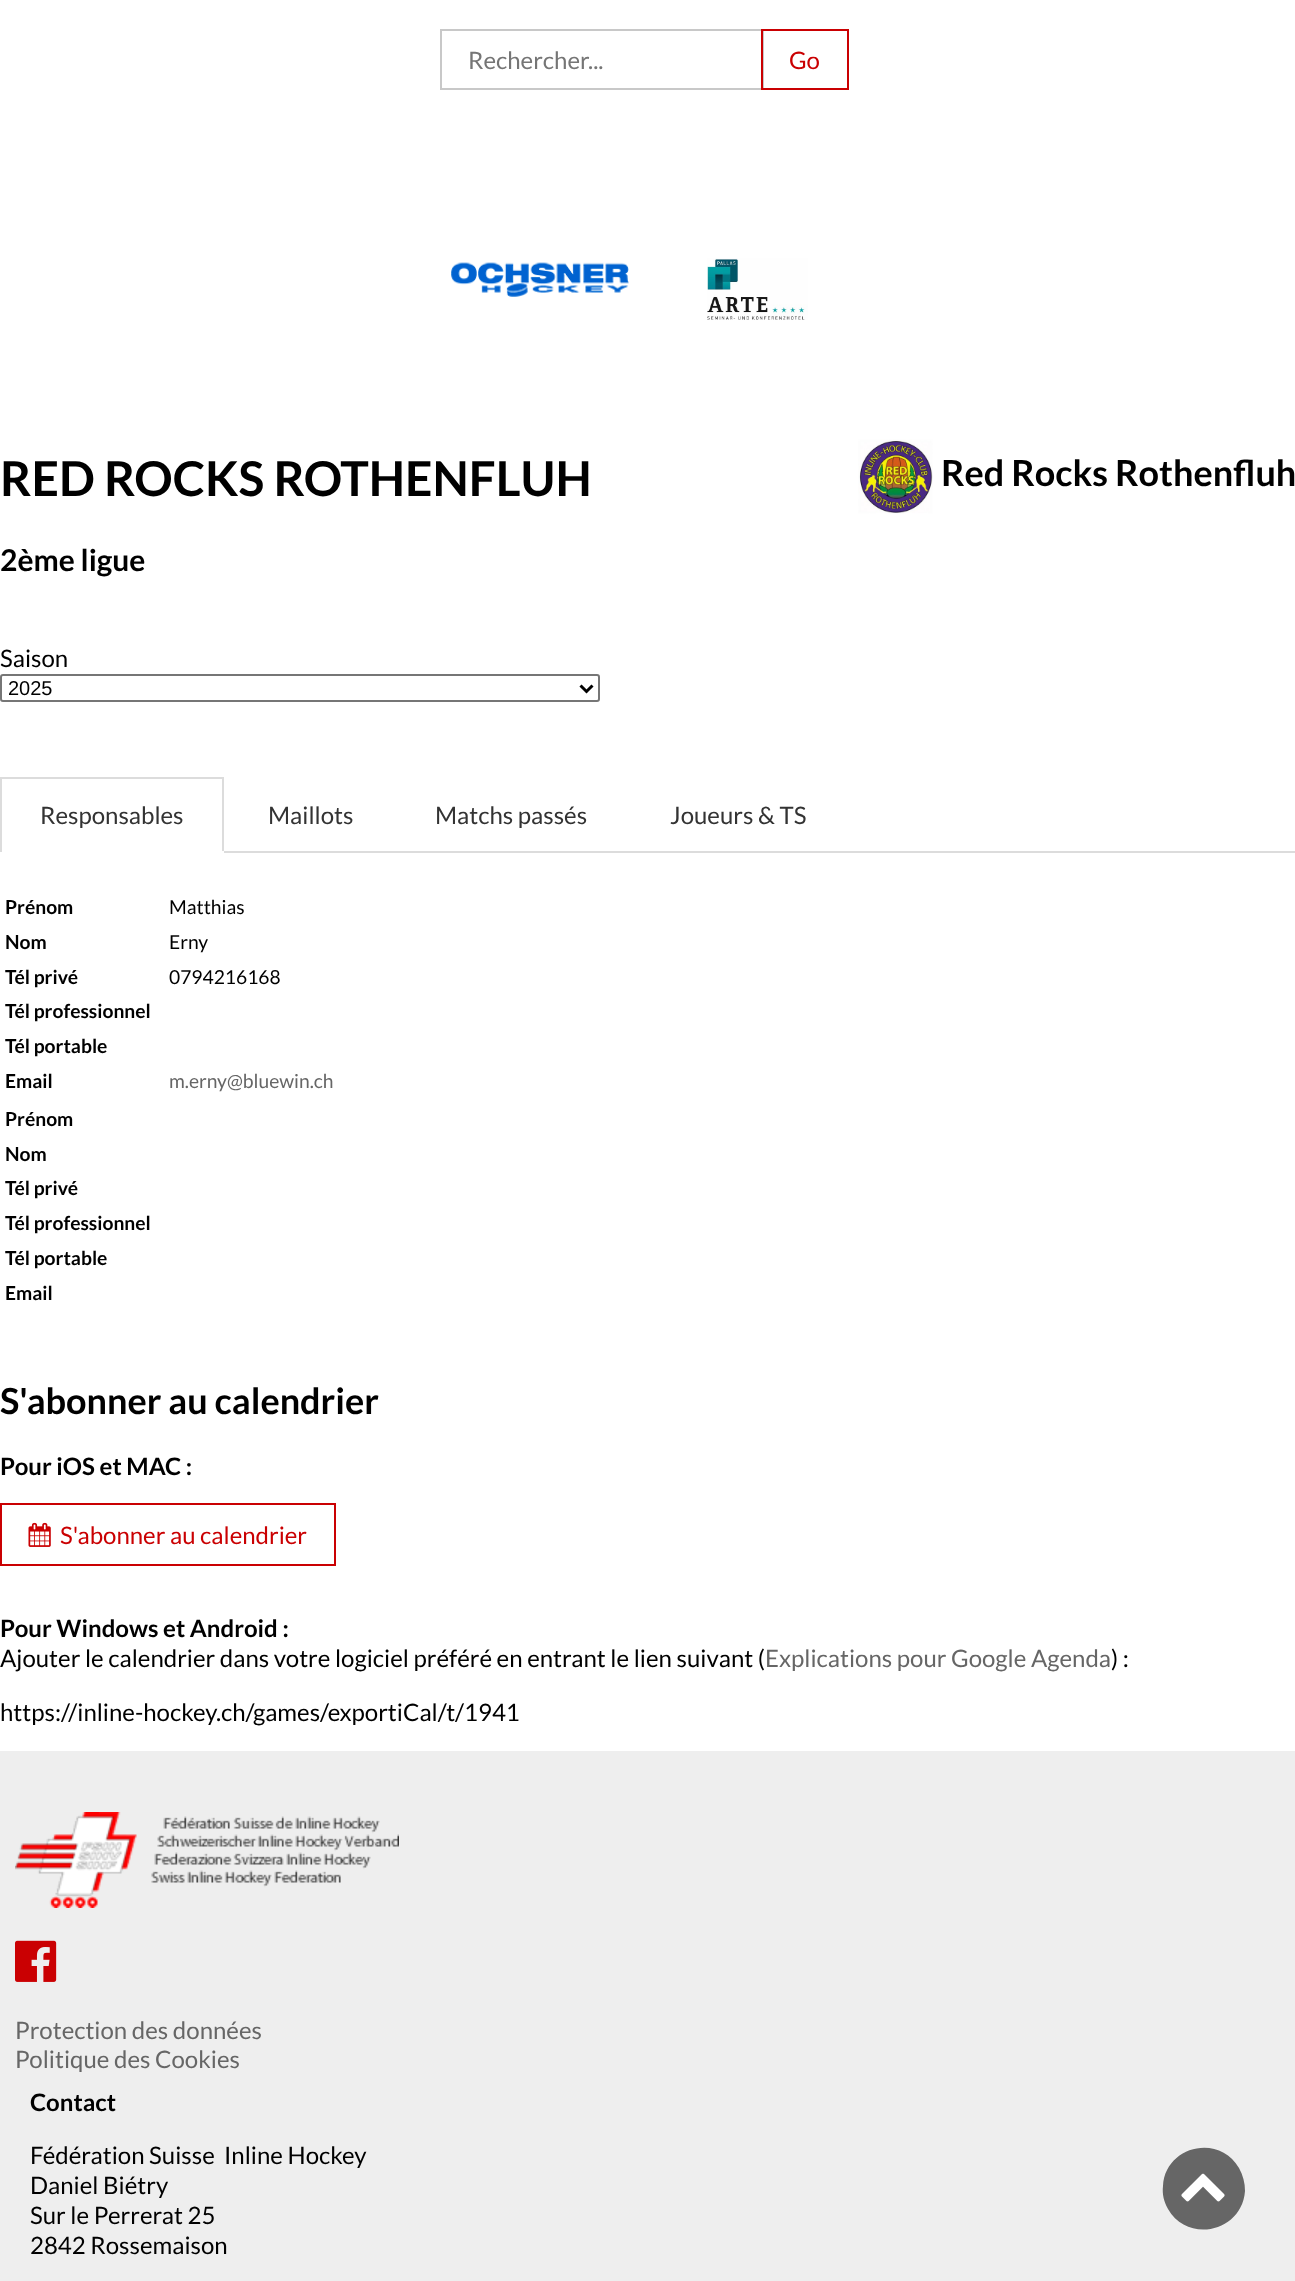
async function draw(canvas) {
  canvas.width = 1295
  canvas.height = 2281
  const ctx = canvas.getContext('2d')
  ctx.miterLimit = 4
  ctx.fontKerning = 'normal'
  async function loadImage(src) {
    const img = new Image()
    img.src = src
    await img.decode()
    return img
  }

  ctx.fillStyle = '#fff'
  ctx.fillRect(0, 0, 1295, 2281)
  ctx.strokeStyle = '#c8c8c8'
  ctx.lineWidth = 2
  ctx.strokeRect(441, 30, 322, 59)
  ctx.font = '24px Lato'
  ctx.fillStyle = '#757575'
  ctx.fillText('Rechercher...', 468, 69)
  ctx.strokeStyle = '#ca0002'
  ctx.strokeRect(762, 30, 86, 59)
  ctx.fillStyle = '#ca0002'
  ctx.fillText('Go', 789, 69)
  ctx.drawImage(await loadImage('image0.png'), 451, 262, 178, 35)
  ctx.drawImage(await loadImage('image1.png'), 707, 258, 101, 62)
  ctx.font = 'bold 48px Lato'
  ctx.fillStyle = '#000'
  ctx.fillText('RED ROCKS ROTHENFLUH', 0, 496)
  ctx.font = 'bold 30px Lato'
  ctx.fillText('2ème ligue', 0, 571)
  ctx.drawImage(await loadImage('image2.png'), 858, 439, 75, 75)
  ctx.font = 'bold 36px Lato'
  ctx.fillText('Red Rocks Rothenfluh', 941, 486)
  ctx.font = '24px Lato'
  ctx.fillText('Saison', 0, 667)
  ctx.beginPath()
  ctx.roundRect(1, 675, 598, 26, 2)
  ctx.strokeStyle = '#767676'
  ctx.stroke()
  ctx.beginPath()
  ctx.moveTo(580.5, 685.5)
  ctx.lineTo(586.5, 691.5)
  ctx.lineTo(592.5, 685.5)
  ctx.strokeStyle = '#000'
  ctx.lineWidth = 3
  ctx.stroke()
  ctx.font = '20px Liberation Sans'
  ctx.fillText('2025', 8, 695)
  ctx.fillStyle = '#dcdcdc'
  ctx.fillRect(0, 777, 224, 2)
  ctx.fillRect(222, 777, 2, 75)
  ctx.fillStyle = '#fff'
  ctx.fillRect(222, 851, 2, 1)
  ctx.fillStyle = '#dcdcdc'
  ctx.fillRect(0, 777, 2, 75)
  ctx.font = '24px Lato'
  ctx.fillStyle = '#333'
  ctx.fillText('Responsables', 40, 824)
  ctx.fillStyle = '#dcdcdc'
  ctx.fillRect(224, 851, 1071, 2)
  ctx.font = 'bold 19.25px Lato'
  ctx.fillStyle = '#000'
  ctx.fillText('Prénom', 5, 914)
  ctx.font = '19.25px Lato'
  ctx.fillText('Matthias', 169, 914)
  ctx.font = 'bold 19.25px Lato'
  ctx.fillText('Nom', 5, 949)
  ctx.font = '19.25px Lato'
  ctx.fillText('Erny', 169, 949)
  ctx.font = 'bold 19.25px Lato'
  ctx.fillText('Tél privé', 5, 984)
  ctx.font = '19.25px Lato'
  ctx.fillText('0794216168', 169, 984)
  ctx.font = 'bold 19.25px Lato'
  ctx.fillText('Tél professionnel', 5, 1018)
  ctx.fillText('Tél portable', 5, 1053)
  ctx.fillText('Email', 5, 1088)
  ctx.font = '19.25px Lato'
  ctx.fillStyle = '#666'
  ctx.fillText('m.erny@bluewin.ch', 169, 1088)
  ctx.font = 'bold 19.25px Lato'
  ctx.fillStyle = '#000'
  ctx.fillText('Prénom', 5, 1126)
  ctx.fillText('Nom', 5, 1161)
  ctx.fillText('Tél privé', 5, 1195)
  ctx.fillText('Tél professionnel', 5, 1230)
  ctx.fillText('Tél portable', 5, 1265)
  ctx.fillText('Email', 5, 1300)
  ctx.font = '24px Lato'
  ctx.fillStyle = '#333'
  ctx.fillText('Maillots', 268, 824)
  ctx.fillText('Matchs passés', 435, 824)
  ctx.fillText('Joueurs & TS', 670, 824)
  ctx.font = 'bold 36px Lato'
  ctx.fillStyle = '#000'
  ctx.fillText('S\'abonner au calendrier', 0, 1414)
  ctx.font = 'bold 24px Lato'
  ctx.fillText('Pour iOS et MAC :', 0, 1475)
  ctx.strokeStyle = '#ca0002'
  ctx.lineWidth = 2
  ctx.strokeRect(1, 1504, 334, 61)
  ctx.drawImage(await loadImage('image3.png'), 28, 1522, 23, 25)
  ctx.font = '24px Lato'
  ctx.fillStyle = '#ca0002'
  ctx.fillText('S\'abonner au calendrier', 60, 1544)
  ctx.font = 'bold 24px Lato'
  ctx.fillStyle = '#000'
  ctx.fillText('Pour Windows et Android :', 0, 1637)
  ctx.font = '24px Lato'
  ctx.fillText('Ajouter le calendrier dans votre logiciel préféré en entrant le lien suivant (', 0, 1667)
  ctx.fillStyle = '#666'
  ctx.fillText('Explications pour Google Agenda', 765, 1667)
  ctx.fillStyle = '#000'
  ctx.fillText(') :', 1111, 1667)
  ctx.fillText('https://inline-hockey.ch/games/exportiCal/t/1941', 0, 1721)
  ctx.fillStyle = '#eee'
  ctx.fillRect(0, 1751, 1295, 530)
  ctx.drawImage(await loadImage('image4.png'), 15, 1812, 384, 96)
  ctx.drawImage(await loadImage('image5.png'), 15, 1940, 42, 42)
  ctx.fillStyle = '#666'
  ctx.fillText('Protection des données', 15, 2039)
  ctx.fillText('Politique des Cookies', 15, 2068)
  ctx.font = 'bold 24px Lato'
  ctx.fillStyle = '#000'
  ctx.fillText('Contact', 30, 2111)
  ctx.font = '24px Lato'
  ctx.fillText('Fédération Suisse  Inline Hockey', 30, 2164)
  ctx.fillText('Daniel Biétry', 30, 2194)
  ctx.fillText('Sur le Perrerat 25', 30, 2224)
  ctx.fillText('2842 Rossemaison', 30, 2254)
  ctx.fillStyle = '#666'
  ctx.beginPath()
  ctx.moveTo(1239, 2168)
  ctx.bezierCurveTo(1243, 2175, 1245, 2183, 1245, 2191)
  ctx.bezierCurveTo(1242, 2232, 1188, 2244, 1168, 2209)
  ctx.bezierCurveTo(1164, 2202, 1162, 2194, 1163, 2186)
  ctx.bezierCurveTo(1165, 2146, 1219, 2133, 1239, 2168)
  ctx.closePath()
  ctx.fill()
  ctx.drawImage(await loadImage('image6.png'), 1181, 2173, 44, 29)
}

draw(document.querySelector('canvas'))
